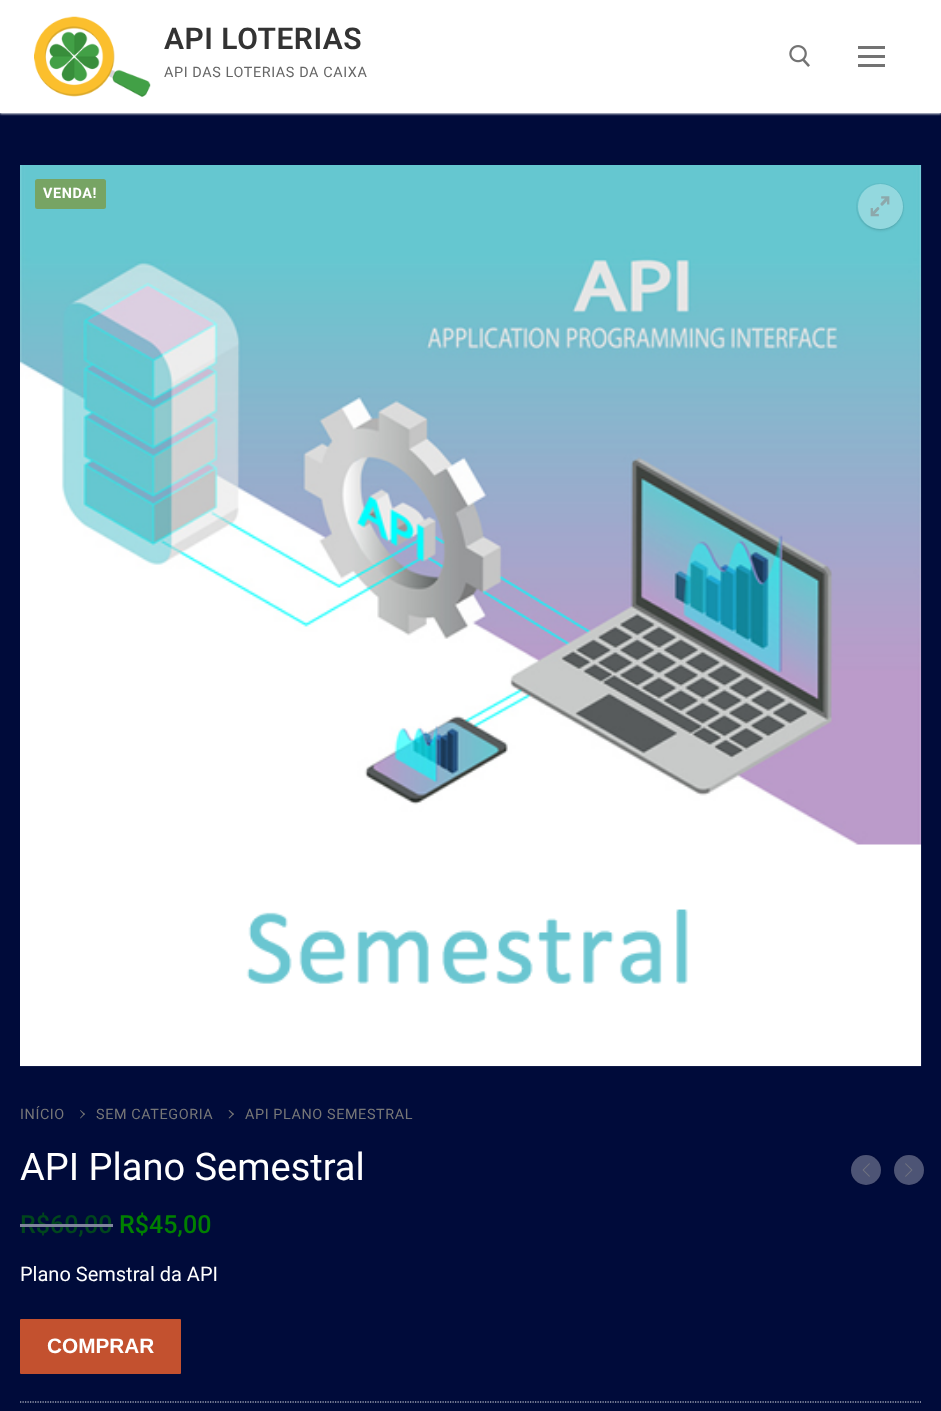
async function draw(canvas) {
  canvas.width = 941
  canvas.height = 1411
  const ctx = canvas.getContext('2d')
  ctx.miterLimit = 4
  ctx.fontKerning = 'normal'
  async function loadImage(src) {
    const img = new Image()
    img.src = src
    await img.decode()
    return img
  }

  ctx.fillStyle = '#000b3a'
  ctx.fillRect(0, 0, 941, 1411)
  ctx.fillStyle = '#e1e5ea'
  ctx.filter = 'blur(1px)'
  ctx.beginPath()
  ctx.rect(0, 1, 941, 113)
  ctx.fill()
  ctx.filter = 'none'
  ctx.fillStyle = '#fff'
  ctx.fillRect(0, 0, 941, 113)
  ctx.drawImage(await loadImage('image0.png'), 34, 16, 117, 81)
  ctx.letterSpacing = '0.5px'
  ctx.font = '600 30px Roboto'
  ctx.fillStyle = '#333'
  ctx.fillText('API LOTERIAS', 164, 49)
  ctx.letterSpacing = '0.6px'
  ctx.font = '14.4px Roboto'
  ctx.fillStyle = '#666'
  ctx.fillText('API DAS LOTERIAS DA CAIXA', 164, 77)
  ctx.drawImage(await loadImage('image1.png'), 789, 45, 21, 22)
  ctx.fillStyle = '#737373'
  ctx.fillRect(858, 55, 27, 3)
  ctx.fillRect(858, 46, 27, 3)
  ctx.fillRect(858, 64, 27, 3)
  ctx.drawImage(await loadImage('image2.png'), 20, 165, 902, 902)
  ctx.fillStyle = '#77a464'
  ctx.beginPath()
  ctx.roundRect(35, 179, 71, 30, 2.5)
  ctx.fill()
  ctx.font = 'bold 14.4px Roboto'
  ctx.fillStyle = '#fff'
  ctx.fillText('VENDA!', 43, 198)
  ctx.beginPath()
  ctx.roundRect(856.5, 183.5, 47, 46, 23)
  ctx.strokeStyle = '#60bdc6'
  ctx.stroke()
  ctx.save()
  ctx.beginPath()
  ctx.moveTo(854, 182)
  ctx.lineTo(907, 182)
  ctx.lineTo(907, 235)
  ctx.lineTo(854, 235)
  ctx.closePath()
  ctx.moveTo(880.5, 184)
  ctx.bezierCurveTo(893, 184, 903, 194, 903, 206.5)
  ctx.bezierCurveTo(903, 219, 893, 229, 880.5, 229)
  ctx.bezierCurveTo(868, 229, 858, 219, 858, 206.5)
  ctx.bezierCurveTo(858, 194, 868, 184, 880.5, 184)
  ctx.closePath()
  ctx.clip('evenodd')
  ctx.fillStyle = '#28505329'
  ctx.filter = 'blur(1px)'
  ctx.beginPath()
  ctx.roundRect(858, 186, 45, 45, 22.5)
  ctx.fill()
  ctx.filter = 'none'
  ctx.restore()
  ctx.fillStyle = '#c1e9ec80'
  ctx.beginPath()
  ctx.arc(880.5, 206.5, 22.5, 0, 2 * Math.PI)
  ctx.fill()
  ctx.drawImage(await loadImage('image3.png'), 870, 196, 20, 21)
  ctx.font = '14.4px Roboto'
  ctx.fillStyle = '#777'
  ctx.fillText('INÍCIO', 20, 1119)
  ctx.beginPath()
  ctx.moveTo(85, 1114)
  ctx.lineTo(80.5, 1118.5)
  ctx.lineTo(80, 1118)
  ctx.lineTo(84, 1113.5)
  ctx.closePath()
  ctx.fill()
  ctx.beginPath()
  ctx.moveTo(85, 1114)
  ctx.lineTo(84, 1115)
  ctx.lineTo(80, 1110.5)
  ctx.lineTo(80.5, 1110)
  ctx.closePath()
  ctx.fill()
  ctx.fillText('SEM CATEGORIA', 96, 1119)
  ctx.beginPath()
  ctx.moveTo(234, 1114)
  ctx.lineTo(229.5, 1118.5)
  ctx.lineTo(228.5, 1118)
  ctx.lineTo(233, 1113.5)
  ctx.closePath()
  ctx.fill()
  ctx.beginPath()
  ctx.moveTo(234, 1114)
  ctx.lineTo(233, 1115)
  ctx.lineTo(228.5, 1110.5)
  ctx.lineTo(229.5, 1110)
  ctx.closePath()
  ctx.fill()
  ctx.fillText('API PLANO SEMESTRAL', 245, 1119)
  ctx.letterSpacing = '0px'
  ctx.font = '38px Roboto'
  ctx.fillStyle = '#fff'
  ctx.fillText('API Plano Semestral', 20, 1180)
  ctx.beginPath()
  ctx.roundRect(850.5, 1154.5, 32, 31, 15.5)
  ctx.strokeStyle = '#000a37'
  ctx.stroke()
  ctx.fillStyle = '#999db080'
  ctx.beginPath()
  ctx.arc(866, 1170, 15, 0, 2 * Math.PI)
  ctx.fill()
  ctx.drawImage(await loadImage('image4.png'), 862, 1163, 8, 14)
  ctx.beginPath()
  ctx.arc(909, 1170, 15.5, 0, 2 * Math.PI)
  ctx.stroke()
  ctx.beginPath()
  ctx.arc(909, 1170, 15, 0, 2 * Math.PI)
  ctx.fill()
  ctx.drawImage(await loadImage('image5.png'), 905, 1163, 8, 14)
  ctx.font = '500 25px Roboto'
  ctx.fillStyle = '#00461d'
  ctx.fillText('R$60,00', 20, 1233)
  ctx.fillStyle = '#80859d'
  ctx.fillRect(20, 1224, 93, 3)
  ctx.fillStyle = '#008000'
  ctx.fillText('R$45,00', 119, 1233)
  ctx.font = '20px Roboto'
  ctx.fillStyle = '#fff'
  ctx.fillText('Plano Semstral da API', 20, 1281)
  ctx.fillStyle = '#c3512f'
  ctx.beginPath()
  ctx.roundRect(20, 1319, 161, 55, 1)
  ctx.fill()
  ctx.font = 'bold 20.75px Liberation Sans'
  ctx.fillStyle = '#fff'
  ctx.fillText('COMPRAR', 47, 1353)
  ctx.beginPath()
  ctx.moveTo(20, 1402)
  ctx.lineTo(921, 1402)
  ctx.strokeStyle = '#eaecee'
  ctx.lineWidth = 1.2
  ctx.setLineDash([1.25, 1.25])
  ctx.stroke()
}

draw(document.querySelector('canvas'))
